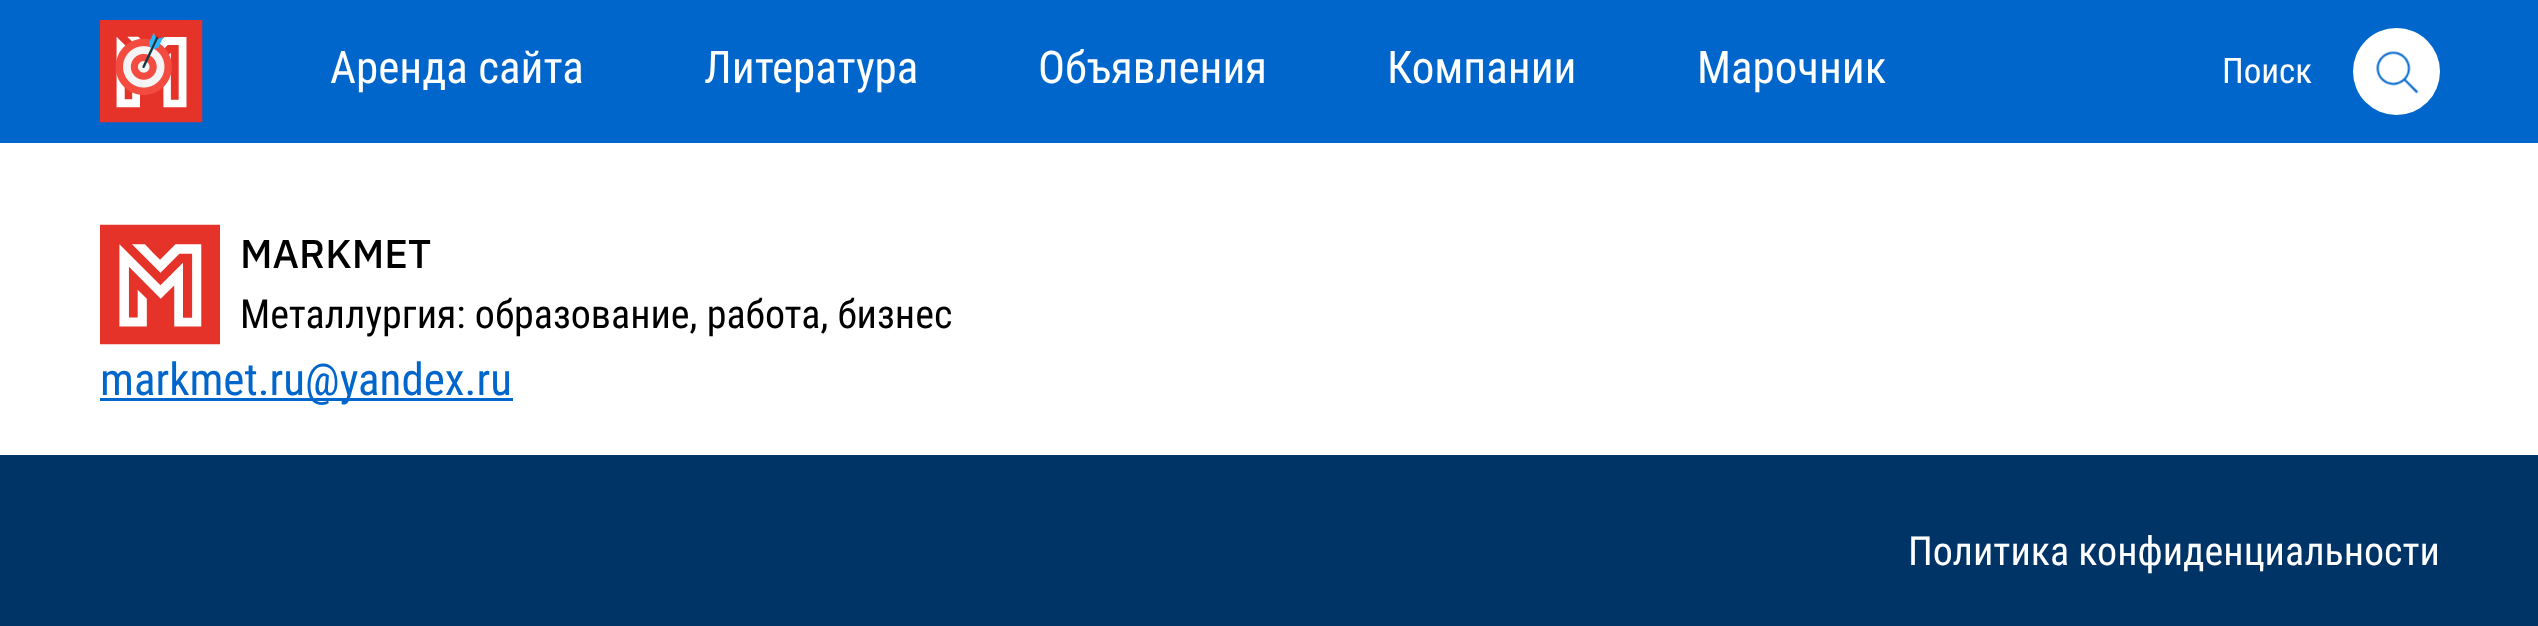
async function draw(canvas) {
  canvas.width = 2538
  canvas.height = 626
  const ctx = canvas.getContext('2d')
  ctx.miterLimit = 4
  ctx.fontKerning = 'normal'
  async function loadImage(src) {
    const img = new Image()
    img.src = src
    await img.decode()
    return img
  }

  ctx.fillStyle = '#fff'
  ctx.fillRect(0, 0, 2538, 626)
  ctx.fillStyle = '#06c'
  ctx.fillRect(0, 0, 2538, 143)
  ctx.drawImage(await loadImage('image0.png'), 100, 20, 103, 103)
  ctx.drawImage(await loadImage('image1.png'), 115, 33, 57, 62)
  ctx.font = '45px Roboto Condensed'
  ctx.fillStyle = '#fff'
  ctx.fillText('Аренда сайта', 330, 83)
  ctx.fillText('Литература', 704, 83)
  ctx.fillText('Объявления', 1038, 83)
  ctx.fillText('Компании', 1387, 83)
  ctx.fillText('Марочник', 1697, 83)
  ctx.font = '35px Roboto Condensed'
  ctx.fillText('Поиск', 2222, 83)
  ctx.beginPath()
  ctx.arc(2396.5, 71.5, 43.5, 0, 2 * Math.PI)
  ctx.fill()
  ctx.drawImage(await loadImage('image2.png'), 2376, 51, 43, 43)
  ctx.drawImage(await loadImage('image3.png'), 100, 224, 120, 121)
  ctx.font = '500 40px IBM Plex Sans Arabic'
  ctx.fillStyle = '#000'
  ctx.fillText('MARKMET', 240, 268)
  ctx.font = '40px Roboto Condensed'
  ctx.fillText('Металлургия: образование, работа, бизнес', 240, 328)
  ctx.fillStyle = '#06c'
  ctx.fillRect(100, 398, 413, 3)
  ctx.font = '45px Roboto Condensed'
  ctx.fillText('markmet.ru@yandex.ru', 100, 395)
  ctx.fillStyle = '#036'
  ctx.fillRect(0, 455, 2538, 171)
  ctx.font = '40px Roboto Condensed'
  ctx.fillStyle = '#fff'
  ctx.fillText('Политика конфиденциальности', 1908, 565)
}

draw(document.querySelector('canvas'))
